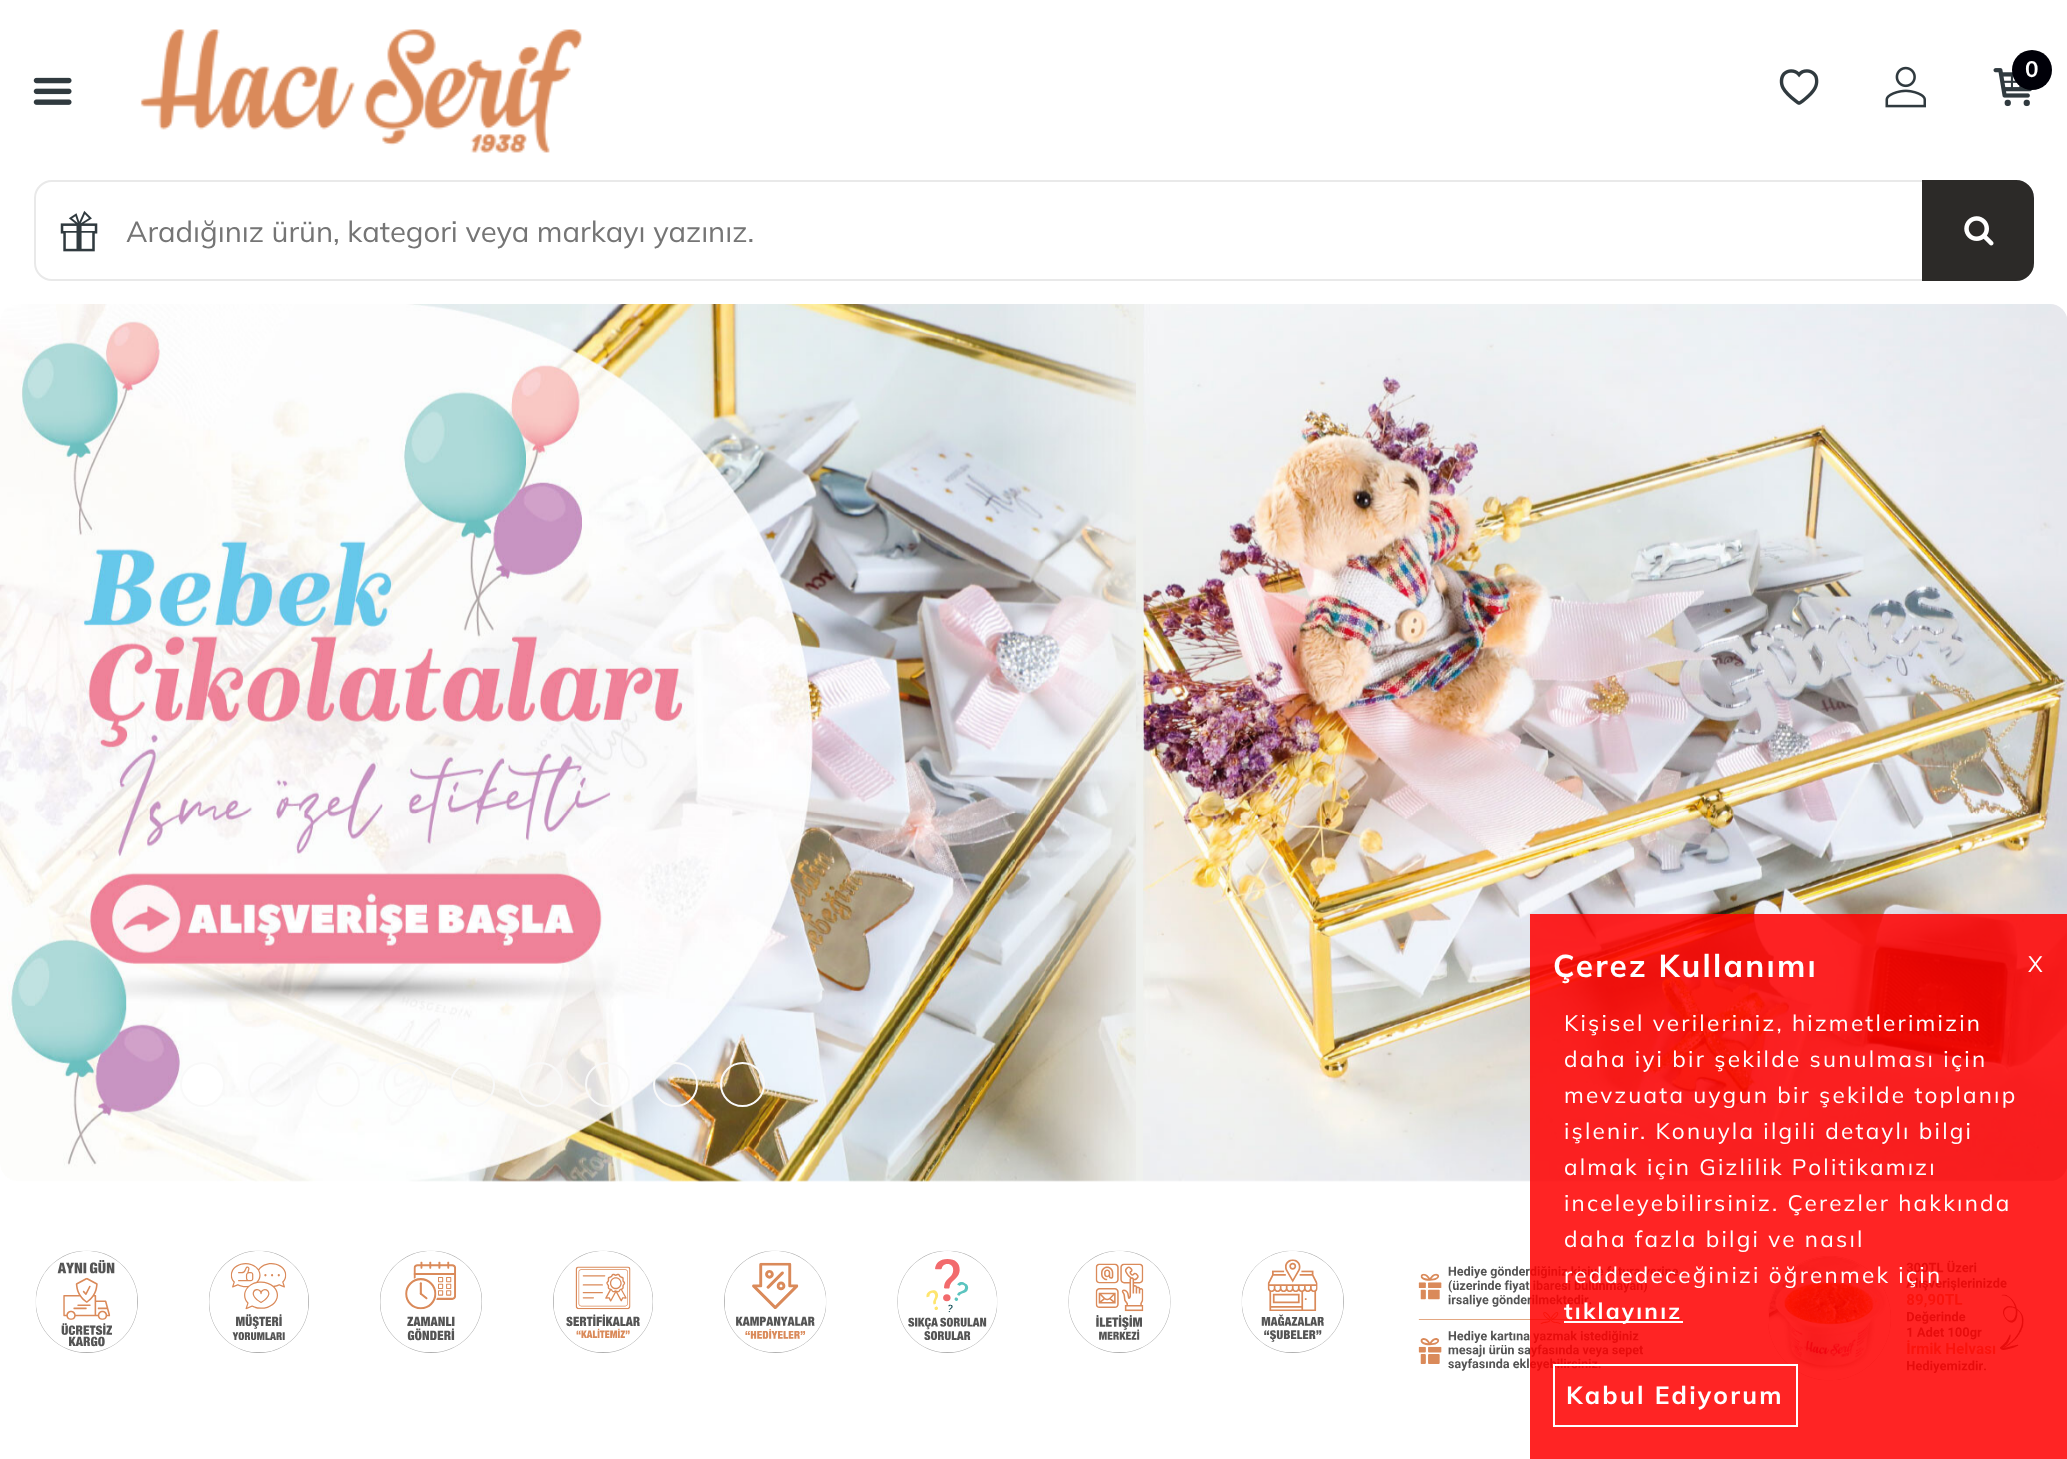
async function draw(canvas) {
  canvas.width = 2067
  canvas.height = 1459
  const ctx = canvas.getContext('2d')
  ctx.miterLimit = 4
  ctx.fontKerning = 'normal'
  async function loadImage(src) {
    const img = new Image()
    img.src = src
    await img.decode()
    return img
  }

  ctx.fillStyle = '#fff'
  ctx.fillRect(0, 0, 2067, 1459)
  ctx.drawImage(await loadImage('image0.png'), 140, 29, 442, 124)
  ctx.drawImage(await loadImage('image1.png'), 1779, 69, 40, 36)
  ctx.drawImage(await loadImage('image2.png'), 1885, 66, 41, 42)
  ctx.drawImage(await loadImage('image3.png'), 1993, 68, 39, 39)
  ctx.fillStyle = '#000008'
  ctx.beginPath()
  ctx.arc(2032, 70, 20, 0, 2 * Math.PI)
  ctx.fill()
  ctx.font = 'bold 22.5px Mulish'
  ctx.fillStyle = '#fff'
  ctx.fillText('0', 2025, 77)
  ctx.drawImage(await loadImage('image4.png'), 33, 77, 39, 28)
  ctx.beginPath()
  ctx.roundRect(35, 181, 1998, 99, 17)
  ctx.strokeStyle = '#e9e9e9'
  ctx.lineWidth = 2
  ctx.stroke()
  ctx.drawImage(await loadImage('image5.png'), 60, 210, 38, 42)
  ctx.font = '29.25px Mulish'
  ctx.fillStyle = '#757575'
  ctx.fillText('Aradığınız ürün, kategori veya markayı yazınız.', 126, 242)
  ctx.fillStyle = '#2c2a28'
  ctx.beginPath()
  ctx.roundRect(1923, 181, 110, 99, [0, 17, 17, 0])
  ctx.fill()
  ctx.strokeStyle = '#2c2a28'
  ctx.stroke()
  ctx.drawImage(await loadImage('image6.png'), 1964, 216, 30, 30)
  ctx.drawImage(await loadImage('image7.png'), 0, 304, 2067, 878)
  ctx.fillStyle = '#fff'
  ctx.beginPath()
  ctx.arc(202.5, 1084.5, 21.5, 0, 2 * Math.PI)
  ctx.fill()
  ctx.strokeStyle = '#f9f9f9'
  ctx.stroke()
  ctx.beginPath()
  ctx.arc(270.5, 1084.5, 21.5, 0, 2 * Math.PI)
  ctx.stroke()
  ctx.beginPath()
  ctx.arc(337.5, 1084.5, 21.5, 0, 2 * Math.PI)
  ctx.stroke()
  ctx.beginPath()
  ctx.arc(405.5, 1084.5, 21.5, 0, 2 * Math.PI)
  ctx.stroke()
  ctx.beginPath()
  ctx.arc(472.5, 1084.5, 21.5, 0, 2 * Math.PI)
  ctx.stroke()
  ctx.beginPath()
  ctx.arc(540.5, 1084.5, 21.5, 0, 2 * Math.PI)
  ctx.stroke()
  ctx.beginPath()
  ctx.arc(607.5, 1084.5, 21.5, 0, 2 * Math.PI)
  ctx.stroke()
  ctx.beginPath()
  ctx.arc(675.5, 1084.5, 21.5, 0, 2 * Math.PI)
  ctx.stroke()
  ctx.beginPath()
  ctx.arc(742.5, 1084.5, 21.5, 0, 2 * Math.PI)
  ctx.stroke()
  ctx.drawImage(await loadImage('image16.png'), 1418, 1266, 265, 105)
  ctx.drawImage(await loadImage('image17.png'), 1768, 1256, 256, 125)
  ctx.fillStyle = '#ff0000db'
  ctx.fillRect(1530, 914, 537, 545)
  ctx.letterSpacing = '2.25px'
  ctx.font = 'bold 31.5px Mulish'
  ctx.fillStyle = '#fff'
  ctx.fillText('Çerez Kullanımı', 1553, 977)
  ctx.font = '22.5px Mulish'
  ctx.fillText('X', 2028, 972)
  ctx.fillText('Kişisel verileriniz, hizmetlerimizin', 1564, 1031)
  ctx.fillText('daha iyi bir şekilde sunulması için', 1564, 1067)
  ctx.fillText('mevzuata uygun bir şekilde toplanıp', 1564, 1103)
  ctx.fillText('işlenir. Konuyla ilgili detaylı bilgi', 1564, 1139)
  ctx.fillText('almak için Gizlilik Politikamızı', 1564, 1175)
  ctx.fillText('inceleyebilirsiniz. Çerezler hakkında', 1564, 1211)
  ctx.fillText('daha fazla bilgi ve nasıl', 1564, 1247)
  ctx.fillText('reddedeceğinizi öğrenmek için', 1564, 1283)
  ctx.fillRect(1564, 1321, 119, 2)
  ctx.font = 'bold 22.5px Mulish'
  ctx.fillText('tıklayınız', 1564, 1319)
  ctx.strokeStyle = '#fff'
  ctx.strokeRect(1554, 1365, 243, 61)
  ctx.font = 'bold 24.75px Mulish'
  ctx.fillText('Kabul Ediyorum', 1566, 1404)
  ctx.drawImage(await loadImage('image8.png'), 35, 1250, 103, 103)
  ctx.drawImage(await loadImage('image9.png'), 209, 1250, 100, 103)
  ctx.drawImage(await loadImage('image10.png'), 380, 1250, 102, 103)
  ctx.drawImage(await loadImage('image11.png'), 553, 1250, 100, 103)
  ctx.drawImage(await loadImage('image12.png'), 724, 1250, 103, 103)
  ctx.drawImage(await loadImage('image13.png'), 897, 1250, 101, 103)
  ctx.drawImage(await loadImage('image14.png'), 1068, 1250, 103, 103)
  ctx.drawImage(await loadImage('image15.png'), 1241, 1250, 103, 103)
}

draw(document.querySelector('canvas'))
